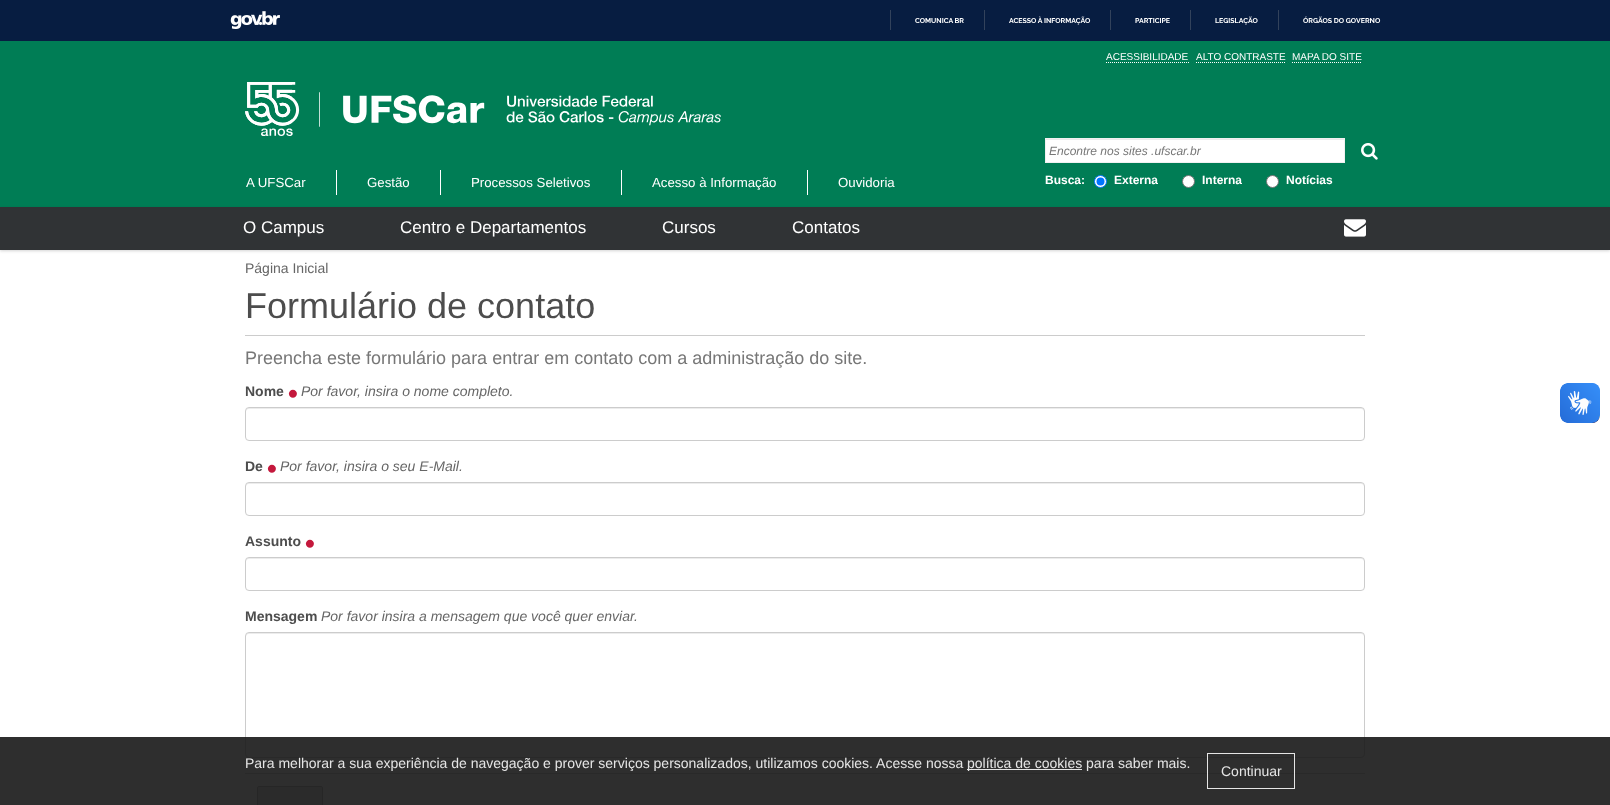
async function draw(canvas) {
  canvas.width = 1610
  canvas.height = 805
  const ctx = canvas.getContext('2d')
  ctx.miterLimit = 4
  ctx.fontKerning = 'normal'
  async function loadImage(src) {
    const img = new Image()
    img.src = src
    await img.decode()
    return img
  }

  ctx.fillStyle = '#fff'
  ctx.fillRect(0, 0, 1610, 805)
  ctx.fillStyle = '#071d41'
  ctx.fillRect(0, 0, 1610, 41)
  ctx.drawImage(await loadImage('image0.png'), 230, 11, 50, 18)
  ctx.fillStyle = '#32425b'
  ctx.fillRect(890, 10, 1, 20)
  ctx.font = 'bold 7px Raleway'
  ctx.fillStyle = '#fff'
  ctx.fillText('COMUNICA BR', 915, 23)
  ctx.fillStyle = '#32425b'
  ctx.fillRect(984, 10, 1, 20)
  ctx.fillStyle = '#fff'
  ctx.fillText('ACESSO À INFORMAÇÃO', 1009, 23)
  ctx.fillStyle = '#32425b'
  ctx.fillRect(1110, 10, 1, 20)
  ctx.fillStyle = '#fff'
  ctx.fillText('PARTICIPE', 1135, 23)
  ctx.fillStyle = '#32425b'
  ctx.fillRect(1190, 10, 1, 20)
  ctx.fillStyle = '#fff'
  ctx.fillText('LEGISLAÇÃO', 1215, 23)
  ctx.fillStyle = '#32425b'
  ctx.fillRect(1278, 10, 1, 20)
  ctx.fillStyle = '#fff'
  ctx.fillText('ÓRGÃOS DO GOVERNO', 1303, 23)
  ctx.fillStyle = '#007d55'
  ctx.fillRect(0, 41, 1610, 166)
  ctx.font = '10px Liberation Sans'
  ctx.fillStyle = '#fff'
  ctx.fillText('ACESSIBILIDADE', 1106, 60)
  ctx.beginPath()
  ctx.moveTo(1106, 62.5)
  ctx.lineTo(1189, 62.5)
  ctx.strokeStyle = '#fff'
  ctx.setLineDash([1, 1])
  ctx.stroke()
  ctx.fillText('ALTO CONTRASTE', 1196, 60)
  ctx.beginPath()
  ctx.moveTo(1196, 62.5)
  ctx.lineTo(1285, 62.5)
  ctx.stroke()
  ctx.fillText('MAPA DO SITE', 1292, 60)
  ctx.beginPath()
  ctx.moveTo(1292, 62.5)
  ctx.lineTo(1362, 62.5)
  ctx.stroke()
  ctx.drawImage(await loadImage('image1.png'), 245, 82, 476, 54)
  ctx.fillRect(336, 170, 1, 25)
  ctx.font = '13.25px Liberation Sans'
  ctx.fillText('A UFSCar', 246, 187)
  ctx.fillRect(440, 170, 1, 25)
  ctx.fillText('Gestão', 367, 187)
  ctx.fillRect(621, 170, 1, 25)
  ctx.fillText('Processos Seletivos', 471, 187)
  ctx.fillRect(807, 170, 1, 25)
  ctx.fillText('Acesso à Informação', 652, 187)
  ctx.fillText('Ouvidoria', 838, 187)
  ctx.fillRect(1046, 140, 298, 22)
  ctx.fillStyle = '#ececec'
  ctx.fillRect(1046, 139, 298, 1)
  ctx.strokeStyle = '#f1f1f1'
  ctx.setLineDash([])
  ctx.strokeRect(1045.5, 138.5, 299, 24)
  ctx.font = 'italic 12px Liberation Sans'
  ctx.fillStyle = '#777'
  ctx.fillText('Encontre nos sites .ufscar.br', 1049, 155)
  ctx.drawImage(await loadImage('image2.png'), 1361, 143, 17, 17)
  ctx.font = 'bold 12px Liberation Sans'
  ctx.fillStyle = '#fff'
  ctx.fillText('Busca:', 1045, 184)
  ctx.beginPath()
  ctx.arc(1100.5, 181.5, 6, 0, 2 * Math.PI)
  ctx.fill()
  ctx.strokeStyle = '#0075ff'
  ctx.stroke()
  ctx.fillStyle = '#0075ff'
  ctx.beginPath()
  ctx.arc(1100.5, 181.5, 4, 0, 2 * Math.PI)
  ctx.fill()
  ctx.fillStyle = '#fff'
  ctx.fillText('Externa', 1114, 184)
  ctx.beginPath()
  ctx.arc(1188.5, 181.5, 6, 0, 2 * Math.PI)
  ctx.fill()
  ctx.strokeStyle = '#767676'
  ctx.stroke()
  ctx.fillText('Interna', 1202, 184)
  ctx.beginPath()
  ctx.arc(1272.5, 181.5, 6, 0, 2 * Math.PI)
  ctx.fill()
  ctx.stroke()
  ctx.fillText('Notícias', 1286, 184)
  ctx.fillStyle = '#ececec'
  ctx.beginPath()
  ctx.moveTo(249, 634)
  ctx.lineTo(1361, 634)
  ctx.bezierCurveTo(1363, 634, 1364, 635, 1364, 637)
  ctx.lineTo(1364, 636)
  ctx.bezierCurveTo(1364, 634, 1363, 633, 1361, 633)
  ctx.lineTo(249, 633)
  ctx.bezierCurveTo(247, 633, 246, 634, 246, 636)
  ctx.lineTo(246, 637)
  ctx.bezierCurveTo(246, 635, 247, 634, 249, 634)
  ctx.closePath()
  ctx.fill()
  ctx.beginPath()
  ctx.roundRect(245.5, 632.5, 1119, 125, 3.5)
  ctx.strokeStyle = '#ccc'
  ctx.stroke()
  ctx.fillStyle = '#fcfcfd'
  ctx.fillRect(245, 774, 1120, 31)
  ctx.fillStyle = '#ccc'
  ctx.fillRect(245, 773, 1120, 1)
  ctx.fillStyle = '#e5e5e5'
  ctx.beginPath()
  ctx.roundRect(257.5, 786.5, 65, 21, 1.5)
  ctx.fill()
  ctx.strokeStyle = '#b2b2b2'
  ctx.stroke()
  ctx.fillStyle = '#141414e3'
  ctx.fillRect(0, 737, 1610, 68)
  ctx.font = '14px Liberation Sans'
  ctx.fillStyle = '#e5e5e5'
  ctx.fillText('Para melhorar a sua experiência de navegação e prover serviços personalizados, utilizamos cookies. Acesse nossa', 245, 768)
  ctx.fillRect(967, 769, 115, 1)
  ctx.fillText('política de cookies para saber mais.', 967, 768)
  ctx.strokeStyle = '#e5e5e5'
  ctx.strokeRect(1207.5, 753.5, 87, 35)
  ctx.fillText('Continuar', 1221, 776)
  ctx.fillStyle = '#0000002b'
  ctx.filter = 'blur(1.5px)'
  ctx.beginPath()
  ctx.rect(0, 208, 1610, 43)
  ctx.fill()
  ctx.filter = 'none'
  ctx.fillStyle = '#303335'
  ctx.fillRect(0, 207, 1610, 43)
  ctx.font = '17px Liberation Sans'
  ctx.fillStyle = '#fff'
  ctx.fillText('O Campus', 243, 233)
  ctx.fillText('Centro e Departamentos', 400, 233)
  ctx.fillText('Cursos', 662, 233)
  ctx.fillText('Contatos', 792, 233)
  ctx.drawImage(await loadImage('image3.png'), 1344, 219, 22, 18)
  ctx.font = '14px Liberation Sans'
  ctx.fillStyle = '#666'
  ctx.fillText('Página Inicial', 245, 273)
  ctx.fillStyle = '#ccc'
  ctx.fillRect(245, 335, 1120, 1)
  ctx.font = '36px Liberation Sans'
  ctx.fillStyle = '#4d4d4d'
  ctx.fillText('Formulário de contato', 245, 318)
  ctx.font = '18px Liberation Sans'
  ctx.fillStyle = '#777'
  ctx.fillText('Preencha este formulário para entrar em contato com a administração do site.', 245, 364)
  ctx.font = 'bold 14px Liberation Sans'
  ctx.fillStyle = '#4d4d4d'
  ctx.fillText('Nome', 245, 396)
  ctx.font = 'bold 28px Liberation Sans'
  ctx.fillStyle = '#c4183c'
  ctx.fillText('•', 288, 403)
  ctx.font = 'italic 14px Liberation Sans'
  ctx.fillStyle = '#666'
  ctx.fillText('Por favor, insira o nome completo.', 301, 396)
  ctx.fillStyle = '#ececec'
  ctx.beginPath()
  ctx.moveTo(249, 409)
  ctx.lineTo(1361, 409)
  ctx.bezierCurveTo(1363, 409, 1364, 410, 1364, 412)
  ctx.lineTo(1364, 411)
  ctx.bezierCurveTo(1364, 409, 1363, 408, 1361, 408)
  ctx.lineTo(249, 408)
  ctx.bezierCurveTo(247, 408, 246, 409, 246, 411)
  ctx.lineTo(246, 412)
  ctx.bezierCurveTo(246, 410, 247, 409, 249, 409)
  ctx.closePath()
  ctx.fill()
  ctx.beginPath()
  ctx.roundRect(245.5, 407.5, 1119, 33, 3.5)
  ctx.strokeStyle = '#ccc'
  ctx.stroke()
  ctx.font = 'bold 14px Liberation Sans'
  ctx.fillStyle = '#4d4d4d'
  ctx.fillText('De', 245, 471)
  ctx.font = 'bold 28px Liberation Sans'
  ctx.fillStyle = '#c4183c'
  ctx.fillText('•', 267, 478)
  ctx.font = 'italic 14px Liberation Sans'
  ctx.fillStyle = '#666'
  ctx.fillText('Por favor, insira o seu E-Mail.', 280, 471)
  ctx.fillStyle = '#ececec'
  ctx.beginPath()
  ctx.moveTo(249, 484)
  ctx.lineTo(1361, 484)
  ctx.bezierCurveTo(1363, 484, 1364, 485, 1364, 487)
  ctx.lineTo(1364, 486)
  ctx.bezierCurveTo(1364, 484, 1363, 483, 1361, 483)
  ctx.lineTo(249, 483)
  ctx.bezierCurveTo(247, 483, 246, 484, 246, 486)
  ctx.lineTo(246, 487)
  ctx.bezierCurveTo(246, 485, 247, 484, 249, 484)
  ctx.closePath()
  ctx.fill()
  ctx.beginPath()
  ctx.roundRect(245.5, 482.5, 1119, 33, 3.5)
  ctx.stroke()
  ctx.font = 'bold 14px Liberation Sans'
  ctx.fillStyle = '#4d4d4d'
  ctx.fillText('Assunto', 245, 546)
  ctx.font = 'bold 28px Liberation Sans'
  ctx.fillStyle = '#c4183c'
  ctx.fillText('•', 305, 553)
  ctx.fillStyle = '#ececec'
  ctx.beginPath()
  ctx.moveTo(249, 559)
  ctx.lineTo(1361, 559)
  ctx.bezierCurveTo(1363, 559, 1364, 560, 1364, 562)
  ctx.lineTo(1364, 561)
  ctx.bezierCurveTo(1364, 559, 1363, 558, 1361, 558)
  ctx.lineTo(249, 558)
  ctx.bezierCurveTo(247, 558, 246, 559, 246, 561)
  ctx.lineTo(246, 562)
  ctx.bezierCurveTo(246, 560, 247, 559, 249, 559)
  ctx.closePath()
  ctx.fill()
  ctx.beginPath()
  ctx.roundRect(245.5, 557.5, 1119, 33, 3.5)
  ctx.stroke()
  ctx.font = 'bold 14px Liberation Sans'
  ctx.fillStyle = '#4d4d4d'
  ctx.fillText('Mensagem', 245, 621)
  ctx.font = 'italic 14px Liberation Sans'
  ctx.fillStyle = '#666'
  ctx.fillText('Por favor insira a mensagem que você quer enviar.', 321, 621)
  ctx.drawImage(await loadImage('image4.png'), 1560, 383, 40, 40)
  ctx.drawImage(await loadImage('image5.png'), 1560, 383, 40, 40)
}

draw(document.querySelector('canvas'))
